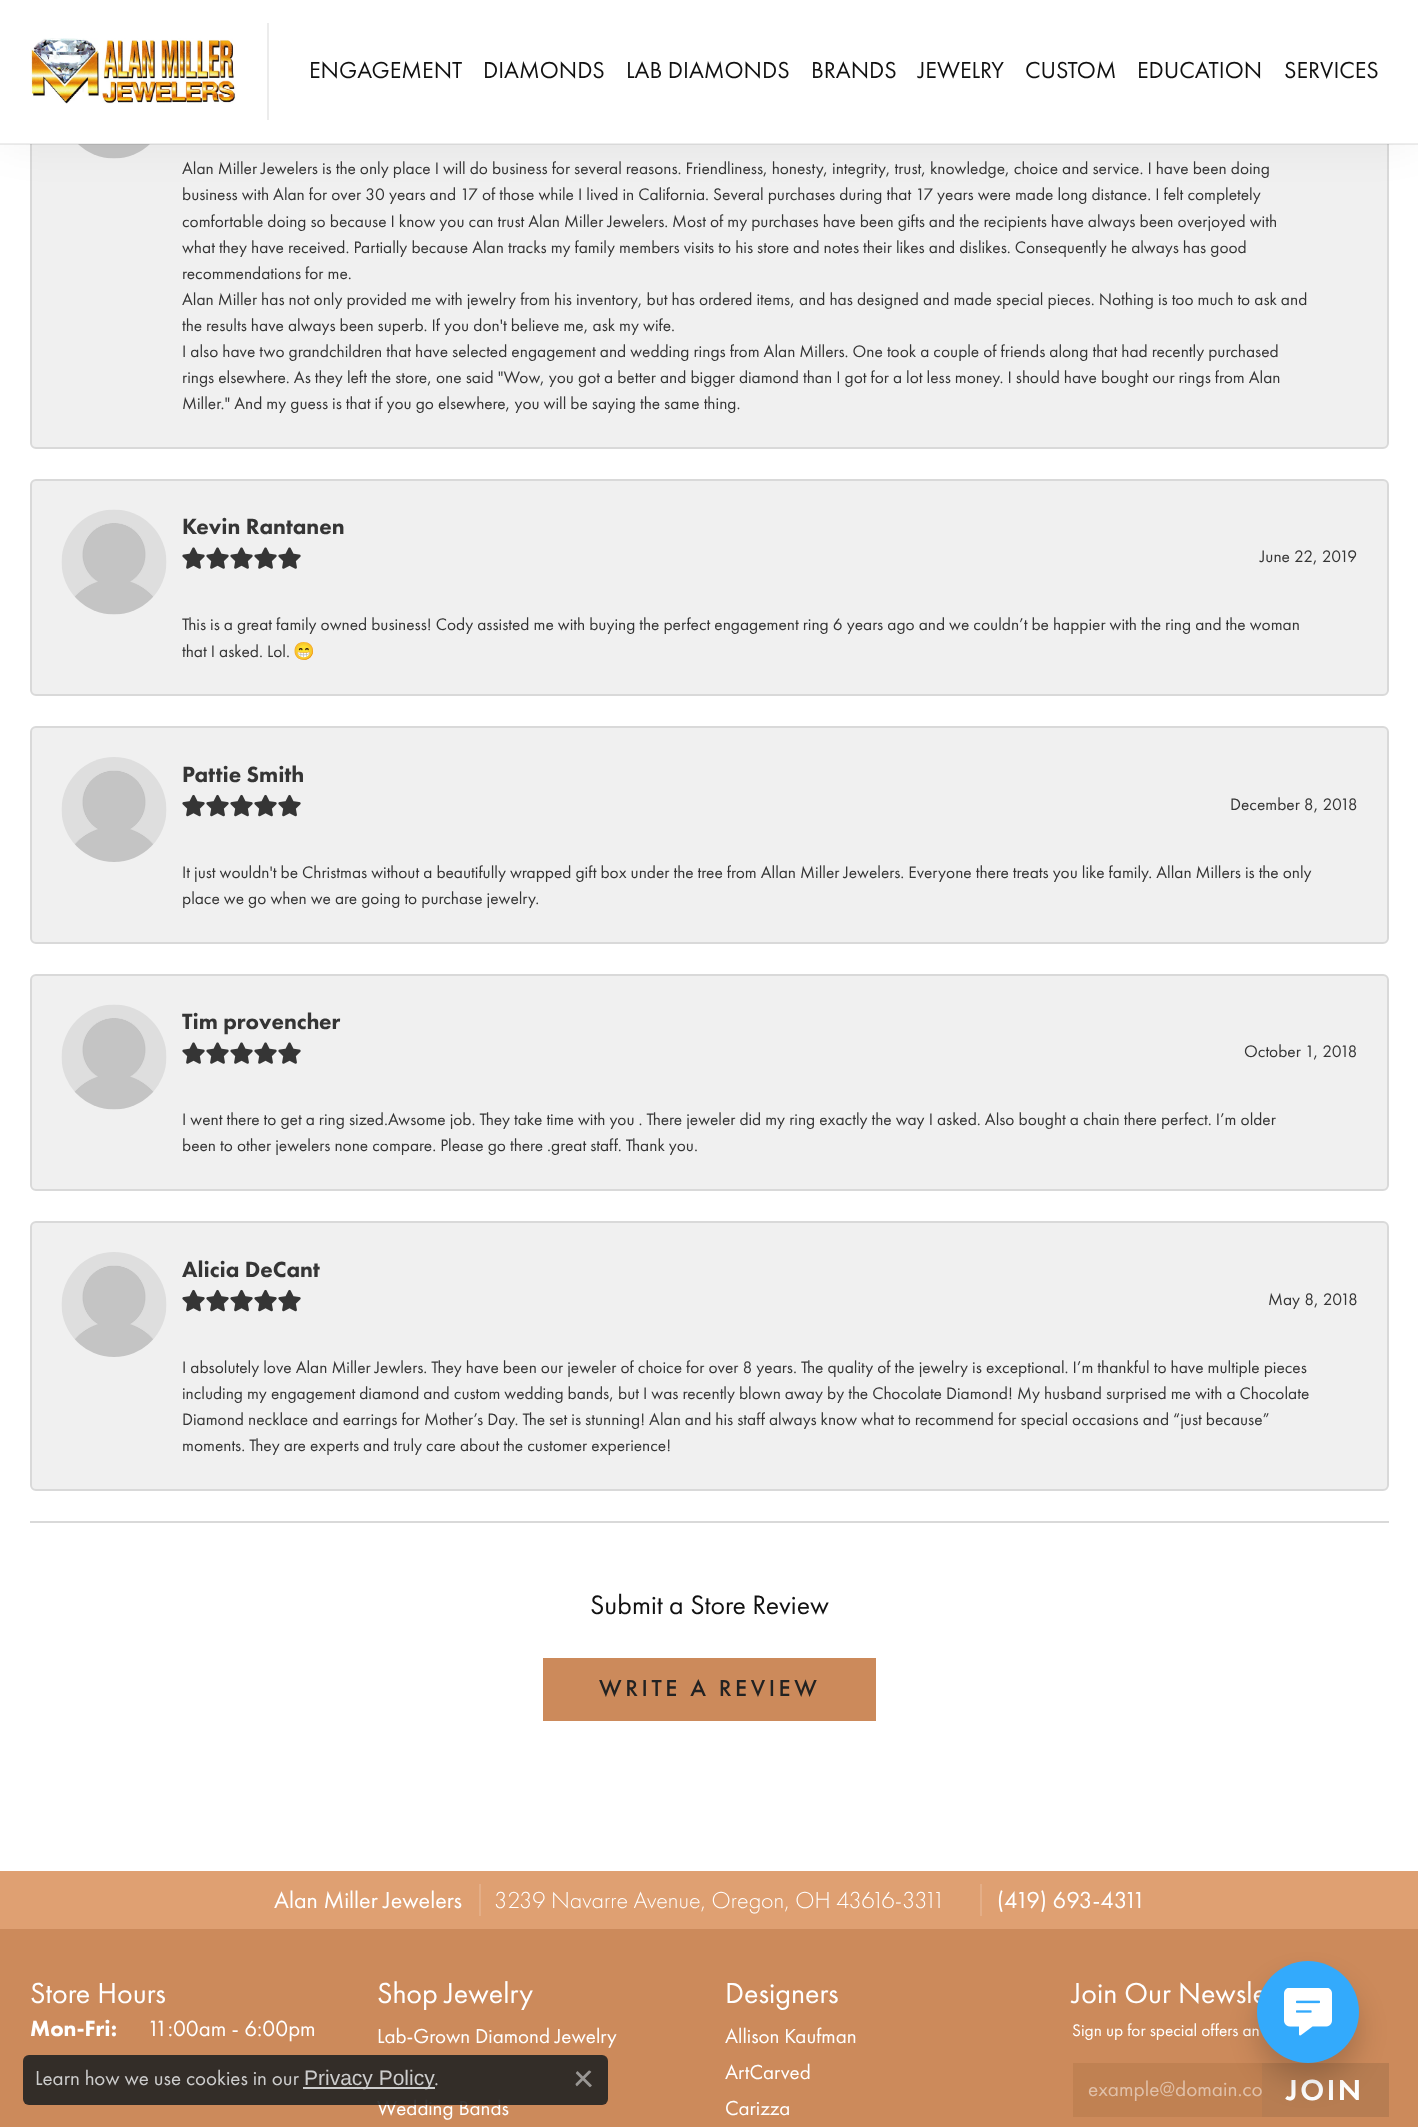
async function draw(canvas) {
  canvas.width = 1418
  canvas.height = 2127
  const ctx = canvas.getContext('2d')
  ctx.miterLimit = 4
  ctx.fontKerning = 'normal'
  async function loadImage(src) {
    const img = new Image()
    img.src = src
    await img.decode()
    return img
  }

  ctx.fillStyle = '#cc8a5b'
  ctx.fillRect(0, 0, 1418, 2127)
  ctx.fillStyle = '#fff'
  ctx.fillRect(0, 144, 1418, 1727)
  ctx.fillStyle = '#f0f0f0'
  ctx.beginPath()
  ctx.roundRect(31, 24, 1357, 424, 5)
  ctx.fill()
  ctx.strokeStyle = '#d9d9d9'
  ctx.lineWidth = 2
  ctx.stroke()
  ctx.drawImage(await loadImage('image1.png'), 78, 144, 72, 15)
  ctx.fillStyle = '#0000000d'
  ctx.filter = 'blur(22.5px)'
  ctx.beginPath()
  ctx.rect(0, 0, 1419, 144)
  ctx.fill()
  ctx.filter = 'none'
  ctx.fillStyle = '#fff'
  ctx.fillRect(0, 0, 1418, 144)
  ctx.fillStyle = '#00000012'
  ctx.fillRect(0, 143, 1418, 2)
  ctx.fillStyle = '#ececec'
  ctx.fillRect(267, 23, 2, 97)
  ctx.drawImage(await loadImage('image0.png'), 30, 38, 206, 66)
  ctx.font = '24px Futura PT'
  ctx.fillStyle = '#111'
  ctx.fillText('ENGAGEMENT', 309, 78)
  ctx.fillText('DIAMONDS', 483, 78)
  ctx.fillText('LAB DIAMONDS', 626, 78)
  ctx.fillText('BRANDS', 811, 78)
  ctx.fillText('JEWELRY', 918, 78)
  ctx.fillText('CUSTOM', 1025, 78)
  ctx.fillText('EDUCATION', 1137, 78)
  ctx.fillText('SERVICES', 1284, 78)
  ctx.fillStyle = '#d9d9d9'
  ctx.fillRect(30, 1521, 1359, 2)
  ctx.font = '17.38px Futura PT'
  ctx.fillStyle = '#353535'
  ctx.fillText('Alan Miller Jewelers is the only place I will do business for several reasons. Friendliness, honesty, integrity, trust, knowledge, choice and service. I have been doing', 182, 174)
  ctx.fillText('business with Alan for over 30 years and 17 of those while I lived in California. Several purchases during that 17 years were made long distance. I felt completely', 182, 200)
  ctx.fillText('comfortable doing so because I know you can trust Alan Miller Jewelers.', 182, 227)
  ctx.fillText('Most of my purchases have been gifts and the recipients have always been overjoyed with', 672, 227)
  ctx.fillText('what they have received. Partially because Alan tracks my family members visits to his store and notes their likes and dislikes. Consequently he always has good', 182, 253)
  ctx.fillText('recommendations for me.', 182, 279)
  ctx.fillText('Alan Miller has not only provided me with jewelry from his inventory, but has ordered items, and has designed and made special pieces. Nothing is too much to ask and', 182, 305)
  ctx.fillText('the results have always been superb. If you don\'t believe me, ask my wife.', 182, 331)
  ctx.fillText('I also have two grandchildren that have selected engagement and wedding rings from Alan Millers. One took a couple of friends along that had recently purchased', 182, 357)
  ctx.fillText('rings elsewhere. As they left the store, one said "Wow, you got a better and bigger diamond than I got for a lot less money. I should have bought our rings from Alan', 182, 383)
  ctx.fillText('Miller." And my guess is that if you go elsewhere, you will be saying the same thing.', 182, 409)
  ctx.fillStyle = '#f0f0f0'
  ctx.beginPath()
  ctx.roundRect(31, 480, 1357, 215, 5)
  ctx.fill()
  ctx.stroke()
  ctx.drawImage(await loadImage('image2.png'), 61, 509, 106, 106)
  ctx.font = '900 22.75px Futura PT'
  ctx.fillStyle = '#353535'
  ctx.fillText('Kevin Rantanen', 182, 534)
  ctx.drawImage(await loadImage('image3.png'), 182, 547, 23, 22)
  ctx.drawImage(await loadImage('image3.png'), 206, 547, 23, 22)
  ctx.drawImage(await loadImage('image3.png'), 230, 547, 23, 22)
  ctx.drawImage(await loadImage('image3.png'), 254, 547, 23, 22)
  ctx.drawImage(await loadImage('image3.png'), 278, 547, 23, 22)
  ctx.font = '17.38px Futura PT'
  ctx.fillText('June 22, 2019', 1260, 562)
  ctx.fillText('This is a great family owned business! Cody assisted me with buying the perfect engagement ring 6 years ago and we couldn’t be happier with the ring and the woman', 182, 630)
  ctx.fillText('that I asked. Lol.', 182, 657)
  ctx.font = '17.38px Noto Color Emoji'
  ctx.fillText('😁', 293, 657)
  ctx.fillStyle = '#f0f0f0'
  ctx.beginPath()
  ctx.roundRect(31, 727, 1357, 216, 5)
  ctx.fill()
  ctx.stroke()
  ctx.drawImage(await loadImage('image4.png'), 61, 757, 106, 105)
  ctx.font = '900 22.75px Futura PT'
  ctx.fillStyle = '#353535'
  ctx.fillText('Pattie Smith', 182, 782)
  ctx.drawImage(await loadImage('image5.png'), 182, 794, 23, 23)
  ctx.drawImage(await loadImage('image5.png'), 206, 794, 23, 23)
  ctx.drawImage(await loadImage('image5.png'), 230, 794, 23, 23)
  ctx.drawImage(await loadImage('image5.png'), 254, 794, 23, 23)
  ctx.drawImage(await loadImage('image5.png'), 278, 794, 23, 23)
  ctx.font = '17.38px Futura PT'
  ctx.fillText('December 8, 2018', 1230, 810)
  ctx.fillText('It just wouldn\'t be Christmas without a beautifully wrapped gift box under the tree from Allan Miller Jewelers. Everyone there treats you like family. Allan Millers is the only', 182, 878)
  ctx.fillText('place we go when we are going to purchase jewelry.', 182, 904)
  ctx.fillStyle = '#f0f0f0'
  ctx.beginPath()
  ctx.roundRect(31, 975, 1357, 215, 5)
  ctx.fill()
  ctx.stroke()
  ctx.drawImage(await loadImage('image6.png'), 61, 1004, 106, 106)
  ctx.font = '900 22.75px Futura PT'
  ctx.fillStyle = '#353535'
  ctx.fillText('Tim provencher', 182, 1029)
  ctx.drawImage(await loadImage('image3.png'), 182, 1042, 23, 22)
  ctx.drawImage(await loadImage('image3.png'), 206, 1042, 23, 22)
  ctx.drawImage(await loadImage('image3.png'), 230, 1042, 23, 22)
  ctx.drawImage(await loadImage('image3.png'), 254, 1042, 23, 22)
  ctx.drawImage(await loadImage('image3.png'), 278, 1042, 23, 22)
  ctx.font = '17.38px Futura PT'
  ctx.fillText('October 1, 2018', 1244, 1057)
  ctx.fillText('I went there to get a ring sized.Awsome job. They take time with you . There jeweler did my ring exactly the way I asked. Also bought a chain there perfect. I’m older', 182, 1125)
  ctx.fillText('been to other jewelers none compare. Please go there .great staff. Thank you.', 182, 1151)
  ctx.fillStyle = '#f0f0f0'
  ctx.beginPath()
  ctx.roundRect(31, 1222, 1357, 268, 5)
  ctx.fill()
  ctx.stroke()
  ctx.drawImage(await loadImage('image7.png'), 61, 1252, 106, 105)
  ctx.font = '900 22.75px Futura PT'
  ctx.fillStyle = '#353535'
  ctx.fillText('Alicia DeCant', 182, 1277)
  ctx.drawImage(await loadImage('image5.png'), 182, 1289, 23, 23)
  ctx.drawImage(await loadImage('image5.png'), 206, 1289, 23, 23)
  ctx.drawImage(await loadImage('image5.png'), 230, 1289, 23, 23)
  ctx.drawImage(await loadImage('image5.png'), 254, 1289, 23, 23)
  ctx.drawImage(await loadImage('image5.png'), 278, 1289, 23, 23)
  ctx.font = '17.38px Futura PT'
  ctx.fillText('May 8, 2018', 1268, 1305)
  ctx.fillText('I absolutely love Alan Miller Jewlers. They have been our jeweler of choice for over 8 years. The quality of the jewelry is exceptional. I’m thankful to have multiple pieces', 182, 1373)
  ctx.fillText('including my engagement diamond and custom wedding bands, but I was recently blown away by the Chocolate Diamond! My husband surprised me with a Chocolate', 182, 1399)
  ctx.fillText('Diamond necklace and earrings for Mother’s Day. The set is stunning! Alan and his staff always know what to recommend for special occasions and “just because”', 182, 1425)
  ctx.fillText('moments. They are experts and truly care about the customer experience!', 182, 1451)
  ctx.font = '27.75px Futura PT'
  ctx.fillStyle = '#111'
  ctx.fillText('Submit a Store Review', 590, 1614)
  ctx.fillStyle = '#cc8a5b'
  ctx.fillRect(543, 1658, 333, 63)
  ctx.letterSpacing = '3.6px'
  ctx.font = '500 24px Futura PT'
  ctx.fillStyle = '#222'
  ctx.fillText('WRITE A REVIEW', 599, 1696)
  ctx.fillStyle = '#dfa072'
  ctx.fillRect(0, 1871, 1418, 58)
  ctx.letterSpacing = '0px'
  ctx.font = '24px Futura PT'
  ctx.fillStyle = '#fff'
  ctx.fillText('Alan Miller Jewelers', 274, 1908)
  ctx.font = '300 24px Futura PT'
  ctx.fillText('3239 Navarre Avenue, Oregon, OH 43616-3311', 494, 1908)
  ctx.fillStyle = '#e4ae87'
  ctx.fillRect(980, 1884, 2, 32)
  ctx.fillRect(479, 1884, 2, 32)
  ctx.font = '24px Futura PT'
  ctx.fillStyle = '#fff'
  ctx.fillText('(419) 693-4311', 997, 1908)
  ctx.font = '30px Futura PT'
  ctx.fillText('Store Hours', 30, 2003)
  ctx.font = '900 22.75px Futura PT'
  ctx.fillText('Mon-Fri:', 30, 2036)
  ctx.font = '22.75px Futura PT'
  ctx.fillText('11:00am - 6:00pm', 147, 2036)
  ctx.font = '30px Futura PT'
  ctx.fillText('Shop Jewelry', 377, 2003)
  ctx.font = '21px Futura PT'
  ctx.fillText('Lab-Grown Diamond Jewelry', 377, 2043)
  ctx.fillText('Wedding Bands', 377, 2115)
  ctx.font = '30px Futura PT'
  ctx.fillText('Designers', 725, 2003)
  ctx.font = '21px Futura PT'
  ctx.fillText('Allison Kaufman', 725, 2043)
  ctx.fillText('ArtCarved', 725, 2079)
  ctx.fillText('Carizza', 725, 2115)
  ctx.font = '30px Futura PT'
  ctx.fillText('Join Our Newsle', 1072, 2003)
  ctx.font = '17.38px Futura PT'
  ctx.fillText('Sign up for special offers an', 1072, 2036)
  ctx.fillStyle = '#c08152'
  ctx.fillRect(1073, 2063, 189, 54)
  ctx.font = '21.25px Futura PT'
  ctx.fillStyle = '#e0c0a9'
  ctx.fillText('example@domain.co', 1088, 2096)
  ctx.fillStyle = '#b77d52'
  ctx.fillRect(1262, 2063, 127, 54)
  ctx.letterSpacing = '2.5px'
  ctx.font = '500 30px "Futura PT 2"'
  ctx.fillStyle = '#fff'
  ctx.fillText('JOIN', 1286, 2100)
  ctx.fillStyle = '#222222e6'
  ctx.beginPath()
  ctx.roundRect(23, 2055, 585, 50, 6)
  ctx.fill()
  ctx.letterSpacing = '0px'
  ctx.font = '21px Futura PT'
  ctx.fillStyle = '#ccc'
  ctx.fillText('Learn how we use cookies in our', 35, 2085)
  ctx.fillRect(303, 2087, 132, 2)
  ctx.font = '21px Liberation Sans'
  ctx.fillText('Privacy Policy', 304, 2085)
  ctx.font = '21px Futura PT'
  ctx.fillText('.', 434, 2085)
  ctx.drawImage(await loadImage('image8.png'), 575, 2070, 17, 18)
  ctx.fillStyle = '#0000002e'
  ctx.filter = 'blur(14px)'
  ctx.beginPath()
  ctx.roundRect(1257, 1979, 102, 102, 51)
  ctx.fill()
  ctx.filter = 'none'
  ctx.fillStyle = '#33aafc'
  ctx.beginPath()
  ctx.arc(1308, 2012, 51, 0, 2 * Math.PI)
  ctx.fill()
  ctx.drawImage(await loadImage('image9.png'), 1284, 1988, 48, 48)
}

draw(document.querySelector('canvas'))
